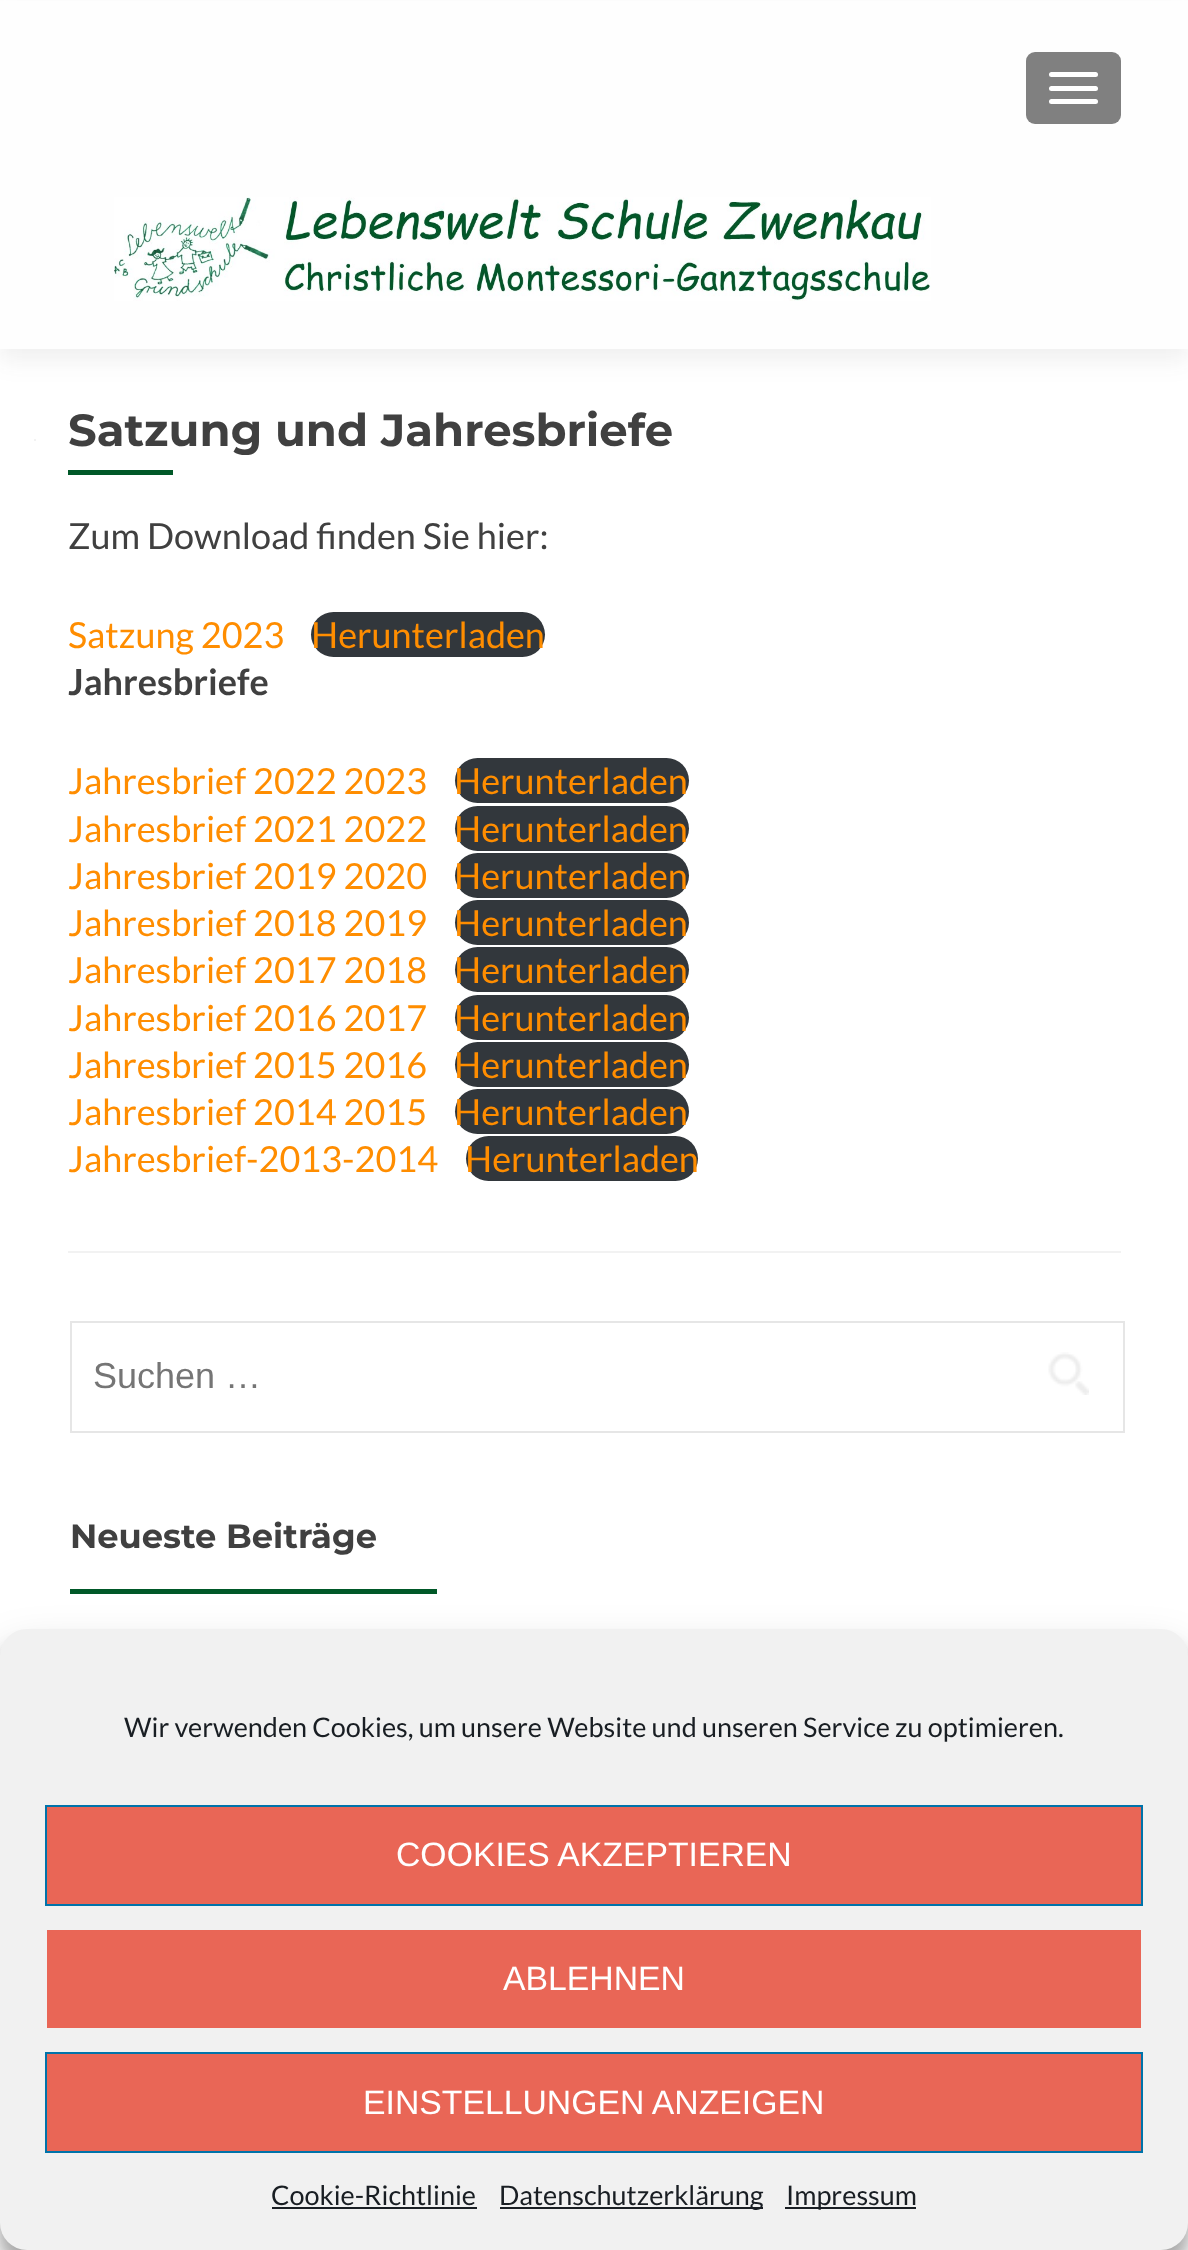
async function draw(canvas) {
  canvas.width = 1188
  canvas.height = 2250
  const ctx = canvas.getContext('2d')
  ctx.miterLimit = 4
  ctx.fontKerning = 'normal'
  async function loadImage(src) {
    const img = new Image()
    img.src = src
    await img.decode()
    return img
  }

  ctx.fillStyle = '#fff'
  ctx.fillRect(0, 0, 1188, 2250)
  ctx.fillStyle = '#32323214'
  ctx.filter = 'blur(12.5px)'
  ctx.beginPath()
  ctx.rect(0, 11, 1188, 349)
  ctx.fill()
  ctx.filter = 'none'
  ctx.fillStyle = '#fefefe'
  ctx.fillRect(0, 1, 1188, 348)
  ctx.fillStyle = '#808080'
  ctx.beginPath()
  ctx.roundRect(1026, 52, 95, 72, 9)
  ctx.fill()
  ctx.fillStyle = '#fff'
  ctx.beginPath()
  ctx.roundRect(1049, 72, 49, 5, 2.5)
  ctx.fill()
  ctx.beginPath()
  ctx.roundRect(1049, 86, 49, 5, 2.5)
  ctx.fill()
  ctx.beginPath()
  ctx.roundRect(1049, 99, 49, 5, 2.5)
  ctx.fill()
  ctx.drawImage(await loadImage('image0.png'), 114, 197, 817, 104)
  ctx.fillStyle = '#f2f2f2'
  ctx.fillRect(68, 1251, 1053, 2)
  ctx.font = '100 45px Montserrat'
  ctx.fillStyle = '#404040'
  ctx.fillText('Satzung und Jahresbriefe', 68, 446)
  ctx.fillStyle = '#005828'
  ctx.fillRect(68, 470, 105, 5)
  ctx.font = '36px Lato'
  ctx.fillStyle = '#404040'
  ctx.fillText('Zum Download finden Sie hier:', 68, 549)
  ctx.fillStyle = '#ff8d00'
  ctx.fillText('Satzung 2023', 68, 648)
  ctx.fillStyle = '#32373c'
  ctx.beginPath()
  ctx.roundRect(311, 612, 234, 45, 22.5)
  ctx.fill()
  ctx.fillStyle = '#ff8d00'
  ctx.fillText('Herunterladen', 311, 648)
  ctx.font = 'bold 36px Lato'
  ctx.fillStyle = '#404040'
  ctx.fillText('Jahresbriefe', 68, 695)
  ctx.font = '36px Lato'
  ctx.fillStyle = '#ff8d00'
  ctx.fillText('Jahresbrief 2022 2023', 68, 794)
  ctx.fillStyle = '#32373c'
  ctx.beginPath()
  ctx.roundRect(455, 758, 234, 45, 22.5)
  ctx.fill()
  ctx.fillStyle = '#ff8d00'
  ctx.fillText('Herunterladen', 454, 794)
  ctx.fillText('Jahresbrief 2021 2022', 68, 842)
  ctx.fillStyle = '#32373c'
  ctx.beginPath()
  ctx.roundRect(455, 806, 234, 45, 22.5)
  ctx.fill()
  ctx.fillStyle = '#ff8d00'
  ctx.fillText('Herunterladen', 454, 842)
  ctx.fillText('Jahresbrief 2019 2020', 68, 889)
  ctx.fillStyle = '#32373c'
  ctx.beginPath()
  ctx.roundRect(455, 853, 234, 45, 22.5)
  ctx.fill()
  ctx.fillStyle = '#ff8d00'
  ctx.fillText('Herunterladen', 454, 889)
  ctx.fillText('Jahresbrief 2018 2019', 68, 936)
  ctx.fillStyle = '#32373c'
  ctx.beginPath()
  ctx.roundRect(455, 900, 234, 45, 22.5)
  ctx.fill()
  ctx.fillStyle = '#ff8d00'
  ctx.fillText('Herunterladen', 454, 936)
  ctx.fillText('Jahresbrief 2017 2018', 68, 983)
  ctx.fillStyle = '#32373c'
  ctx.beginPath()
  ctx.roundRect(455, 947, 234, 45, 22.5)
  ctx.fill()
  ctx.fillStyle = '#ff8d00'
  ctx.fillText('Herunterladen', 454, 983)
  ctx.fillText('Jahresbrief 2016 2017', 68, 1031)
  ctx.fillStyle = '#32373c'
  ctx.beginPath()
  ctx.roundRect(455, 995, 234, 45, 22.5)
  ctx.fill()
  ctx.fillStyle = '#ff8d00'
  ctx.fillText('Herunterladen', 454, 1031)
  ctx.fillText('Jahresbrief 2015 2016', 68, 1078)
  ctx.fillStyle = '#32373c'
  ctx.beginPath()
  ctx.roundRect(455, 1042, 234, 45, 22.5)
  ctx.fill()
  ctx.fillStyle = '#ff8d00'
  ctx.fillText('Herunterladen', 454, 1078)
  ctx.fillText('Jahresbrief 2014 2015', 68, 1125)
  ctx.fillStyle = '#32373c'
  ctx.beginPath()
  ctx.roundRect(455, 1089, 234, 45, 22.5)
  ctx.fill()
  ctx.fillStyle = '#ff8d00'
  ctx.fillText('Herunterladen', 454, 1125)
  ctx.fillText('Jahresbrief-2013-2014', 68, 1172)
  ctx.fillStyle = '#32373c'
  ctx.beginPath()
  ctx.roundRect(466, 1136, 232, 45, 22.5)
  ctx.fill()
  ctx.fillStyle = '#ff8d00'
  ctx.fillText('Herunterladen', 465, 1172)
  ctx.fillStyle = '#f2f2f2'
  ctx.fillRect(34, 439, 2, 2)
  ctx.strokeStyle = '#e6e6e6'
  ctx.lineWidth = 2
  ctx.strokeRect(71, 1322, 1053, 110)
  ctx.font = '36px Liberation Sans'
  ctx.fillStyle = '#757575'
  ctx.fillText('Suchen …', 93, 1388)
  ctx.drawImage(await loadImage('image1.png'), 1048, 1352, 41, 43)
  ctx.font = '100 33.75px Montserrat'
  ctx.fillStyle = '#404040'
  ctx.fillText('Neueste Beiträge', 70, 1548)
  ctx.fillStyle = '#005828'
  ctx.fillRect(70, 1589, 367, 5)
  ctx.fillStyle = '#0000003b'
  ctx.filter = 'blur(7px)'
  ctx.beginPath()
  ctx.roundRect(0, 1643, 1188, 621, 27)
  ctx.fill()
  ctx.filter = 'none'
  ctx.fillStyle = '#00000030'
  ctx.filter = 'blur(22.5px)'
  ctx.beginPath()
  ctx.roundRect(0, 1652, 1188, 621, 27)
  ctx.fill()
  ctx.filter = 'none'
  ctx.fillStyle = '#f1f1f1'
  ctx.beginPath()
  ctx.roundRect(0, 1629, 1188, 621, 27)
  ctx.fill()
  ctx.font = '27px Lato'
  ctx.fillStyle = '#191e23'
  ctx.fillText('Wir verwenden Cookies, um unsere Website und unseren Service zu optimieren.', 124, 1737)
  ctx.fillStyle = '#e96656'
  ctx.beginPath()
  ctx.rect(46, 1806, 1096, 99)
  ctx.fill()
  ctx.strokeStyle = '#0073aa'
  ctx.stroke()
  ctx.font = '33.75px Liberation Sans'
  ctx.fillStyle = '#fff'
  ctx.fillText('COOKIES AKZEPTIEREN', 396, 1866)
  ctx.fillStyle = '#e96656'
  ctx.fillRect(47, 1930, 1094, 98)
  ctx.fillStyle = '#fff'
  ctx.fillText('ABLEHNEN', 503, 1990)
  ctx.fillStyle = '#e96656'
  ctx.beginPath()
  ctx.rect(46, 2053, 1096, 99)
  ctx.fill()
  ctx.stroke()
  ctx.fillStyle = '#fff'
  ctx.fillText('EINSTELLUNGEN ANZEIGEN', 363, 2114)
  ctx.font = '27px Lato'
  ctx.fillStyle = '#191e23'
  ctx.fillText('Cookie-Richtlinie', 271, 2205)
  ctx.fillRect(272, 2207, 205, 2)
  ctx.fillRect(500, 2207, 263, 2)
  ctx.fillText('Datenschutzerklärung', 499, 2205)
  ctx.fillRect(785, 2207, 131, 2)
  ctx.fillText('Impressum', 786, 2205)
}

draw(document.querySelector('canvas'))
